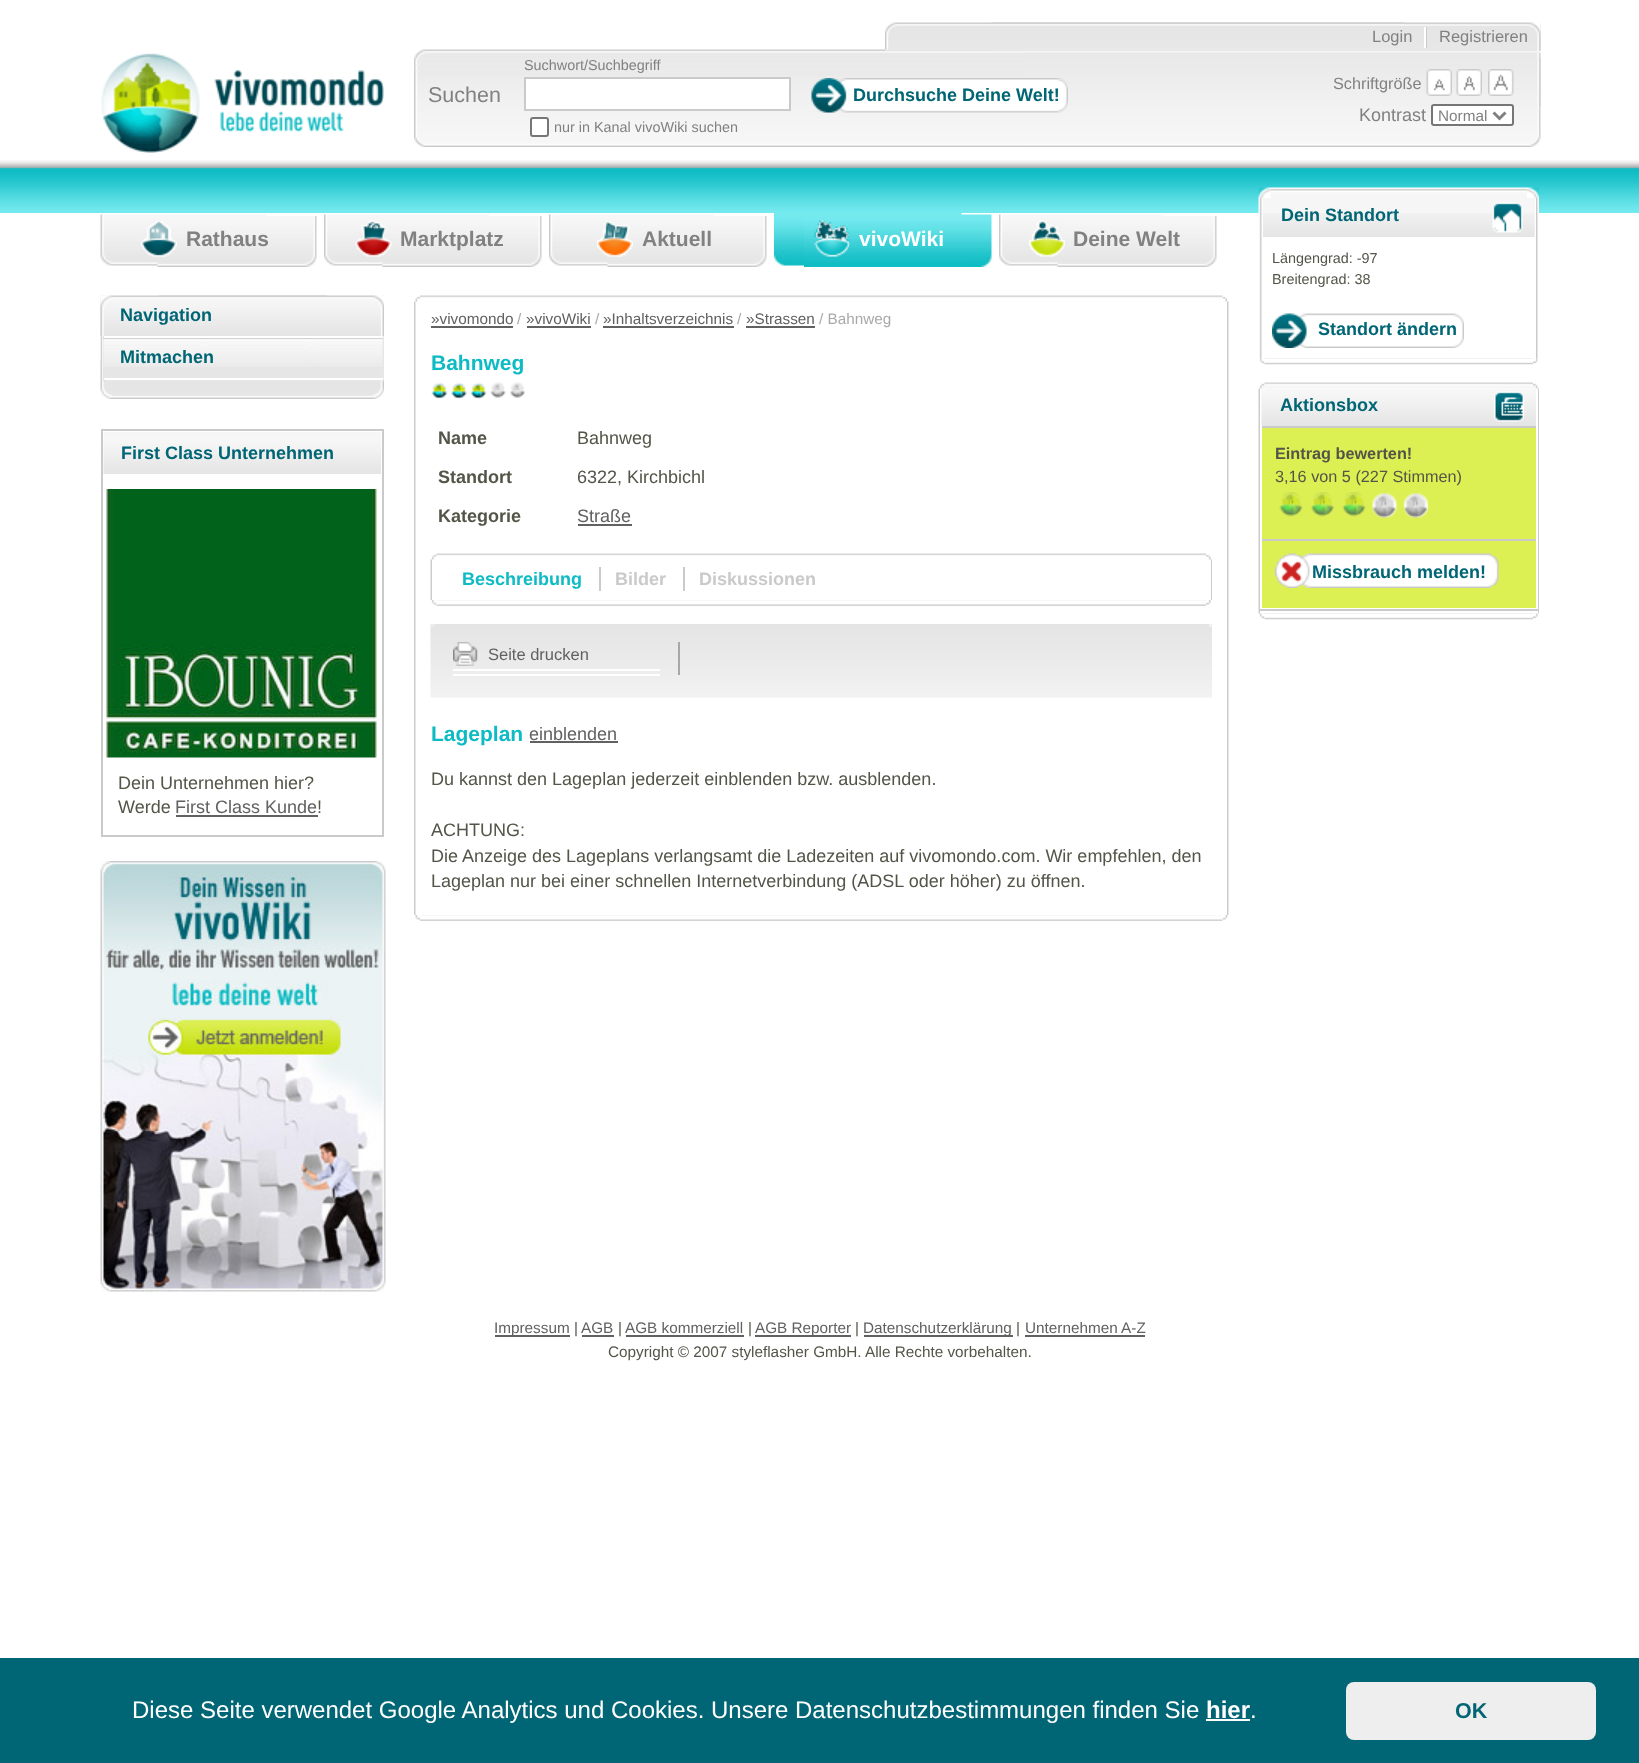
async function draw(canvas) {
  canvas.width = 1639
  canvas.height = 1763
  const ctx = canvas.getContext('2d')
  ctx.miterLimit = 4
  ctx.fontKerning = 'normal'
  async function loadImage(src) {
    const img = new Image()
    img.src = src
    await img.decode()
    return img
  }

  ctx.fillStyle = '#fff'
  ctx.fillRect(0, 0, 1639, 1763)
  ctx.drawImage(await loadImage('image0.png'), 0, 160, 1639, 53)
  ctx.drawImage(await loadImage('image1.png'), 101, 53, 283, 100)
  ctx.drawImage(await loadImage('image2.png'), 414, 49, 1125, 10)
  ctx.drawImage(await loadImage('image3.png'), 1024, 52, 517, 55)
  ctx.fillStyle = '#e6e6e6'
  ctx.fillRect(885, 23, 656, 28)
  ctx.drawImage(await loadImage('image4.png'), 991, 22, 550, 29)
  ctx.drawImage(await loadImage('image5.png'), 885, 22, 519, 28)
  ctx.fillStyle = '#fff'
  ctx.fillRect(1424, 27, 2, 21)
  ctx.font = '16.5px Liberation Sans'
  ctx.fillStyle = '#818181'
  ctx.fillText('Login', 1372, 42)
  ctx.fillStyle = '#cacaca'
  ctx.fillRect(1426, 27, 1, 21)
  ctx.fillStyle = '#818181'
  ctx.fillText('Registrieren', 1439, 42)
  ctx.drawImage(await loadImage('image6.png'), 414, 58, 1125, 18)
  ctx.drawImage(await loadImage('image7.png'), 1026, 58, 515, 89)
  ctx.drawImage(await loadImage('image8.png'), 414, 76, 612, 71)
  ctx.font = '21.5px Liberation Sans'
  ctx.fillText('Suchen', 428, 102)
  ctx.font = '14.4px Liberation Sans'
  ctx.fillText('Suchwort/Suchbegriff', 524, 70)
  ctx.fillStyle = '#fff'
  ctx.beginPath()
  ctx.rect(525, 78, 265, 32)
  ctx.fill()
  ctx.strokeStyle = '#cacaca'
  ctx.lineWidth = 2
  ctx.stroke()
  ctx.drawImage(await loadImage('image9.png'), 811, 78, 257, 35)
  ctx.font = 'bold 18px Liberation Sans'
  ctx.fillStyle = '#006574'
  ctx.fillText('Durchsuche Deine Welt!', 853, 101)
  ctx.fillStyle = '#fff'
  ctx.beginPath()
  ctx.roundRect(531, 118, 17, 18, 2)
  ctx.fill()
  ctx.strokeStyle = '#767676'
  ctx.stroke()
  ctx.font = '14.4px Liberation Sans'
  ctx.fillStyle = '#818181'
  ctx.fillText('nur in Kanal vivoWiki suchen', 554, 132)
  ctx.font = '16.25px Liberation Sans'
  ctx.fillText('Schriftgröße', 1333, 89)
  ctx.drawImage(await loadImage('image10.png'), 1426, 69, 26, 27)
  ctx.drawImage(await loadImage('image11.png'), 1456, 69, 26, 27)
  ctx.drawImage(await loadImage('image12.png'), 1488, 69, 26, 27)
  ctx.font = '18px Liberation Sans'
  ctx.fillText('Kontrast', 1359, 121)
  ctx.fillStyle = '#fff'
  ctx.beginPath()
  ctx.roundRect(1432, 105, 81, 20, 2)
  ctx.fill()
  ctx.stroke()
  ctx.beginPath()
  ctx.moveTo(1493.5, 112.5)
  ctx.lineTo(1499.5, 118.5)
  ctx.lineTo(1505.5, 112.5)
  ctx.strokeStyle = '#808080'
  ctx.lineWidth = 3
  ctx.stroke()
  ctx.font = '15.3px Liberation Sans'
  ctx.fillStyle = '#818181'
  ctx.fillText('Normal', 1438, 121)
  ctx.drawImage(await loadImage('image13.png'), 123, 380, 261, 19)
  ctx.drawImage(await loadImage('image14.png'), 100, 360, 23, 39)
  ctx.fillStyle = '#e7e7e7'
  ctx.fillRect(381, 295, 3, 86)
  ctx.drawImage(await loadImage('image15.png'), 100, 295, 5, 86)
  ctx.fillStyle = '#e6e6e6'
  ctx.fillRect(104, 338, 277, 40)
  ctx.drawImage(await loadImage('image19.png'), 103, 337, 280, 30)
  ctx.fillStyle = '#fff'
  ctx.fillRect(104, 336, 279, 2)
  ctx.drawImage(await loadImage('image16.png'), 159, 295, 225, 1)
  ctx.drawImage(await loadImage('image17.png'), 159, 295, 225, 41)
  ctx.drawImage(await loadImage('image18.png'), 100, 295, 227, 41)
  ctx.font = 'bold 18px Liberation Sans'
  ctx.fillStyle = '#006574'
  ctx.fillText('Navigation', 120, 321)
  ctx.fillStyle = '#fff'
  ctx.fillRect(104, 378, 279, 2)
  ctx.fillStyle = '#006574'
  ctx.fillText('Mitmachen', 120, 363)
  ctx.strokeStyle = '#cacaca'
  ctx.lineWidth = 2
  ctx.strokeRect(102, 430, 281, 406)
  ctx.fillStyle = '#f6f6f6'
  ctx.fillRect(104, 432, 277, 5)
  ctx.drawImage(await loadImage('image20.png'), 103, 437, 278, 37)
  ctx.fillStyle = '#006574'
  ctx.fillText('First Class Unternehmen', 121, 459)
  ctx.drawImage(await loadImage('image21.png'), 106, 489, 271, 269)
  ctx.font = '18px Liberation Sans'
  ctx.fillStyle = '#535548'
  ctx.fillText('Dein Unternehmen hier?', 118, 789)
  ctx.fillText('Werde', 118, 813)
  ctx.fillStyle = '#616161'
  ctx.fillText('First Class Kunde', 175, 813)
  ctx.fillRect(176, 815, 142, 2)
  ctx.fillStyle = '#535548'
  ctx.fillText('!', 317, 813)
  ctx.drawImage(await loadImage('image22.png'), 100, 861, 286, 431)
  ctx.drawImage(await loadImage('image23.png'), 415, 296, 5, 6)
  ctx.drawImage(await loadImage('image24.png'), 1222, 296, 6, 6)
  ctx.drawImage(await loadImage('image25.png'), 420, 295, 803, 4)
  ctx.drawImage(await loadImage('image26.png'), 414, 301, 2, 614)
  ctx.drawImage(await loadImage('image27.png'), 1227, 301, 2, 614)
  ctx.font = '15.3px Liberation Sans'
  ctx.fillStyle = '#616161'
  ctx.fillText('»vivomondo', 431, 324)
  ctx.fillRect(431, 326, 82, 2)
  ctx.fillStyle = '#a9a9a9'
  ctx.fillText('/', 517, 324)
  ctx.fillStyle = '#616161'
  ctx.fillText('»vivoWiki', 526, 324)
  ctx.fillRect(527, 326, 64, 2)
  ctx.fillStyle = '#a9a9a9'
  ctx.fillText('/', 595, 324)
  ctx.fillStyle = '#616161'
  ctx.fillText('»Inhaltsverzeichnis', 603, 324)
  ctx.fillRect(603, 326, 131, 2)
  ctx.fillStyle = '#a9a9a9'
  ctx.fillText('/', 737, 324)
  ctx.fillStyle = '#616161'
  ctx.fillText('»Strassen', 746, 324)
  ctx.fillRect(746, 326, 69, 2)
  ctx.fillStyle = '#a9a9a9'
  ctx.fillText('/ Bahnweg', 819, 324)
  ctx.font = 'bold 21px Liberation Sans'
  ctx.fillStyle = '#0cbbc3'
  ctx.fillText('Bahnweg', 431, 370)
  ctx.drawImage(await loadImage('image28.png'), 487, 382, 38, 16)
  ctx.drawImage(await loadImage('image29.png'), 431, 382, 56, 17)
  ctx.font = 'bold 18px Liberation Sans'
  ctx.fillStyle = '#535548'
  ctx.fillText('Name', 438, 444)
  ctx.font = '18px Liberation Sans'
  ctx.fillText('Bahnweg', 577, 444)
  ctx.font = 'bold 18px Liberation Sans'
  ctx.fillText('Standort', 438, 483)
  ctx.font = '18px Liberation Sans'
  ctx.fillText('6322, Kirchbichl', 577, 483)
  ctx.font = 'bold 18px Liberation Sans'
  ctx.fillText('Kategorie', 438, 522)
  ctx.font = '18px Liberation Sans'
  ctx.fillStyle = '#616161'
  ctx.fillText('Straße', 577, 522)
  ctx.fillRect(578, 524, 54, 2)
  ctx.drawImage(await loadImage('image30.png'), 431, 554, 6, 6)
  ctx.drawImage(await loadImage('image31.png'), 1206, 554, 5, 6)
  ctx.drawImage(await loadImage('image32.png'), 436, 553, 770, 4)
  ctx.drawImage(await loadImage('image33.png'), 430, 559, 2, 41)
  ctx.drawImage(await loadImage('image34.png'), 1210, 559, 2, 41)
  ctx.fillStyle = '#fff'
  ctx.fillRect(1210, 560, 1, 40)
  ctx.font = 'bold 18px Liberation Sans'
  ctx.fillStyle = '#0cbbc3'
  ctx.fillText('Beschreibung', 462, 585)
  ctx.fillStyle = '#cacaca'
  ctx.fillRect(599, 567, 2, 24)
  ctx.fillText('Bilder', 615, 585)
  ctx.fillRect(683, 567, 2, 24)
  ctx.fillText('Diskussionen', 699, 585)
  ctx.drawImage(await loadImage('image35.png'), 431, 600, 6, 5)
  ctx.drawImage(await loadImage('image36.png'), 1206, 600, 5, 5)
  ctx.drawImage(await loadImage('image37.png'), 436, 600, 770, 6)
  ctx.fillStyle = '#f7f7f7'
  ctx.fillRect(431, 697, 781, 1)
  ctx.drawImage(await loadImage('image38.png'), 430, 624, 782, 73)
  ctx.fillStyle = '#ededed'
  ctx.fillRect(431, 624, 3, 3)
  ctx.fillStyle = '#f1f1f1'
  ctx.fillRect(1209, 624, 3, 3)
  ctx.fillStyle = '#a8a8a8'
  ctx.fillRect(678, 642, 2, 33)
  ctx.fillStyle = '#fff'
  ctx.fillRect(453, 669, 207, 2)
  ctx.drawImage(await loadImage('image39.png'), 453, 642, 25, 24)
  ctx.font = '16.5px Liberation Sans'
  ctx.fillStyle = '#616161'
  ctx.fillText('Seite drucken', 488, 660)
  ctx.fillStyle = '#fff'
  ctx.fillRect(453, 674, 207, 2)
  ctx.font = 'bold 21px Liberation Sans'
  ctx.fillStyle = '#0cbbc3'
  ctx.fillText('Lageplan', 431, 741)
  ctx.font = '18px Liberation Sans'
  ctx.fillStyle = '#616161'
  ctx.fillText('einblenden', 529, 740)
  ctx.fillRect(530, 741, 88, 2)
  ctx.fillStyle = '#535548'
  ctx.fillText('Du kannst den Lageplan jederzeit einblenden bzw. ausblenden.', 431, 785)
  ctx.fillText('ACHTUNG:', 431, 836)
  ctx.fillText('Die Anzeige des Lageplans verlangsamt die Ladezeiten auf vivomondo.com. Wir empfehlen, den', 431, 862)
  ctx.fillText('Lageplan nur bei einer schnellen Internetverbindung (ADSL oder höher) zu öffnen.', 431, 887)
  ctx.drawImage(await loadImage('image40.png'), 415, 915, 5, 5)
  ctx.drawImage(await loadImage('image41.png'), 1222, 915, 6, 5)
  ctx.drawImage(await loadImage('image42.png'), 420, 915, 803, 6)
  ctx.fillStyle = '#fff'
  ctx.fillRect(1259, 188, 280, 25)
  ctx.drawImage(await loadImage('image43.png'), 1258, 187, 13, 11)
  ctx.drawImage(await loadImage('image44.png'), 1527, 187, 12, 11)
  ctx.drawImage(await loadImage('image45.png'), 1270, 187, 257, 11)
  ctx.drawImage(await loadImage('image46.png'), 1258, 198, 4, 161)
  ctx.drawImage(await loadImage('image47.png'), 1536, 198, 2, 161)
  ctx.fillStyle = '#f6f6f6'
  ctx.fillRect(1263, 198, 272, 39)
  ctx.drawImage(await loadImage('image48.png'), 1263, 213, 272, 24)
  ctx.drawImage(await loadImage('image49.png'), 1492, 202, 31, 31)
  ctx.font = 'bold 18px Liberation Sans'
  ctx.fillStyle = '#006574'
  ctx.fillText('Dein Standort', 1281, 221)
  ctx.font = '14.4px Liberation Sans'
  ctx.fillStyle = '#535548'
  ctx.fillText('Längengrad: -97', 1272, 263)
  ctx.fillText('Breitengrad: 38', 1272, 284)
  ctx.drawImage(await loadImage('image50.png'), 1272, 313, 192, 35)
  ctx.font = 'bold 18px Liberation Sans'
  ctx.fillStyle = '#006574'
  ctx.fillText('Standort ändern', 1318, 335)
  ctx.drawImage(await loadImage('image51.png'), 1259, 358, 6, 6)
  ctx.drawImage(await loadImage('image52.png'), 1533, 358, 5, 6)
  ctx.drawImage(await loadImage('image53.png'), 1264, 358, 269, 7)
  ctx.drawImage(await loadImage('image54.png'), 1259, 383, 6, 6)
  ctx.drawImage(await loadImage('image55.png'), 1533, 383, 5, 6)
  ctx.drawImage(await loadImage('image56.png'), 1264, 382, 269, 7)
  ctx.drawImage(await loadImage('image57.png'), 1258, 388, 2, 226)
  ctx.drawImage(await loadImage('image58.png'), 1537, 388, 2, 226)
  ctx.fillStyle = '#fff'
  ctx.fillRect(1537, 389, 1, 225)
  ctx.drawImage(await loadImage('image59.png'), 1261, 389, 275, 37)
  ctx.drawImage(await loadImage('image60.png'), 1494, 391, 30, 31)
  ctx.fillStyle = '#006574'
  ctx.fillText('Aktionsbox', 1280, 411)
  ctx.fillStyle = '#dcef53'
  ctx.fillRect(1262, 428, 274, 111)
  ctx.fillStyle = '#cacaca'
  ctx.fillRect(1262, 426, 274, 2)
  ctx.font = 'bold 16.25px Liberation Sans'
  ctx.fillStyle = '#535548'
  ctx.fillText('Eintrag bewerten!', 1275, 459)
  ctx.font = '16.25px Liberation Sans'
  ctx.fillText('3,16 von 5 (227 Stimmen)', 1275, 482)
  ctx.drawImage(await loadImage('image61.png'), 1366, 493, 63, 25)
  ctx.drawImage(await loadImage('image62.png'), 1277, 492, 89, 26)
  ctx.fillStyle = '#dcef53'
  ctx.fillRect(1262, 541, 274, 67)
  ctx.fillStyle = '#cacaca'
  ctx.fillRect(1262, 539, 274, 2)
  ctx.drawImage(await loadImage('image63.png'), 1275, 553, 224, 35)
  ctx.font = 'bold 18px Liberation Sans'
  ctx.fillStyle = '#006574'
  ctx.fillText('Missbrauch melden!', 1312, 578)
  ctx.fillStyle = '#cacaca'
  ctx.fillRect(1260, 609, 278, 2)
  ctx.drawImage(await loadImage('image64.png'), 1259, 613, 6, 6)
  ctx.drawImage(await loadImage('image65.png'), 1533, 613, 6, 6)
  ctx.drawImage(await loadImage('image53.png'), 1264, 613, 269, 7)
  ctx.drawImage(await loadImage('image66.png'), 100, 214, 167, 52)
  ctx.drawImage(await loadImage('image67.png'), 157, 216, 160, 51)
  ctx.drawImage(await loadImage('image68.png'), 141, 221, 36, 36)
  ctx.font = 'bold 21px Liberation Sans'
  ctx.fillStyle = '#818181'
  ctx.fillText('Rathaus', 186, 246)
  ctx.drawImage(await loadImage('image69.png'), 324, 214, 165, 52)
  ctx.drawImage(await loadImage('image67.png'), 382, 216, 160, 51)
  ctx.drawImage(await loadImage('image70.png'), 355, 220, 37, 37)
  ctx.fillText('Marktplatz', 400, 246)
  ctx.drawImage(await loadImage('image71.png'), 549, 214, 165, 52)
  ctx.drawImage(await loadImage('image67.png'), 607, 216, 160, 51)
  ctx.drawImage(await loadImage('image72.png'), 597, 220, 36, 37)
  ctx.fillText('Aktuell', 642, 246)
  ctx.drawImage(await loadImage('image73.png'), 774, 213, 188, 53)
  ctx.drawImage(await loadImage('image74.png'), 804, 214, 188, 53)
  ctx.drawImage(await loadImage('image75.png'), 814, 220, 37, 37)
  ctx.fillStyle = '#fff'
  ctx.fillText('vivoWiki', 859, 246)
  ctx.drawImage(await loadImage('image71.png'), 999, 214, 165, 52)
  ctx.drawImage(await loadImage('image76.png'), 1057, 216, 160, 51)
  ctx.drawImage(await loadImage('image77.png'), 1029, 220, 36, 37)
  ctx.fillStyle = '#818181'
  ctx.fillText('Deine Welt', 1073, 246)
  ctx.fillStyle = '#616161'
  ctx.fillRect(495, 1335, 75, 2)
  ctx.font = '15.3px Liberation Sans'
  ctx.fillText('Impressum', 494, 1333)
  ctx.fillStyle = '#535548'
  ctx.fillText('|', 574, 1333)
  ctx.fillStyle = '#616161'
  ctx.fillText('AGB', 581, 1333)
  ctx.fillRect(582, 1335, 32, 2)
  ctx.fillStyle = '#535548'
  ctx.fillText('|', 618, 1333)
  ctx.fillStyle = '#616161'
  ctx.fillText('AGB kommerziell', 625, 1333)
  ctx.fillRect(626, 1335, 118, 2)
  ctx.fillStyle = '#535548'
  ctx.fillText('|', 748, 1333)
  ctx.fillStyle = '#616161'
  ctx.fillRect(755, 1335, 96, 2)
  ctx.fillText('AGB Reporter', 755, 1333)
  ctx.fillStyle = '#535548'
  ctx.fillText('|', 855, 1333)
  ctx.fillStyle = '#616161'
  ctx.fillRect(864, 1335, 149, 2)
  ctx.fillText('Datenschutzerklärung', 863, 1333)
  ctx.fillStyle = '#535548'
  ctx.fillText('|', 1016, 1333)
  ctx.fillStyle = '#616161'
  ctx.fillText('Unternehmen A-Z', 1025, 1333)
  ctx.fillRect(1025, 1335, 120, 2)
  ctx.fillStyle = '#535548'
  ctx.fillText('Copyright © 2007 styleflasher GmbH. Alle Rechte vorbehalten.', 608, 1357)
  ctx.fillStyle = '#006574'
  ctx.fillRect(0, 1658, 1639, 105)
  ctx.font = '24px Liberation Sans'
  ctx.fillStyle = '#fff'
  ctx.fillText('Diese Seite verwendet Google Analytics und Cookies. Unsere Datenschutzbestimmungen finden Sie', 132, 1718)
  ctx.font = 'bold 24px Liberation Sans'
  ctx.fillText('hier', 1206, 1718)
  ctx.fillRect(1206, 1719, 44, 2)
  ctx.font = '24px Liberation Sans'
  ctx.fillText('.', 1250, 1718)
  ctx.fillStyle = '#eee'
  ctx.beginPath()
  ctx.roundRect(1346, 1682, 250, 58, 8)
  ctx.fill()
  ctx.font = 'bold 21.5px Liberation Sans'
  ctx.fillStyle = '#006574'
  ctx.fillText('OK', 1455, 1718)
}

draw(document.querySelector('canvas'))
